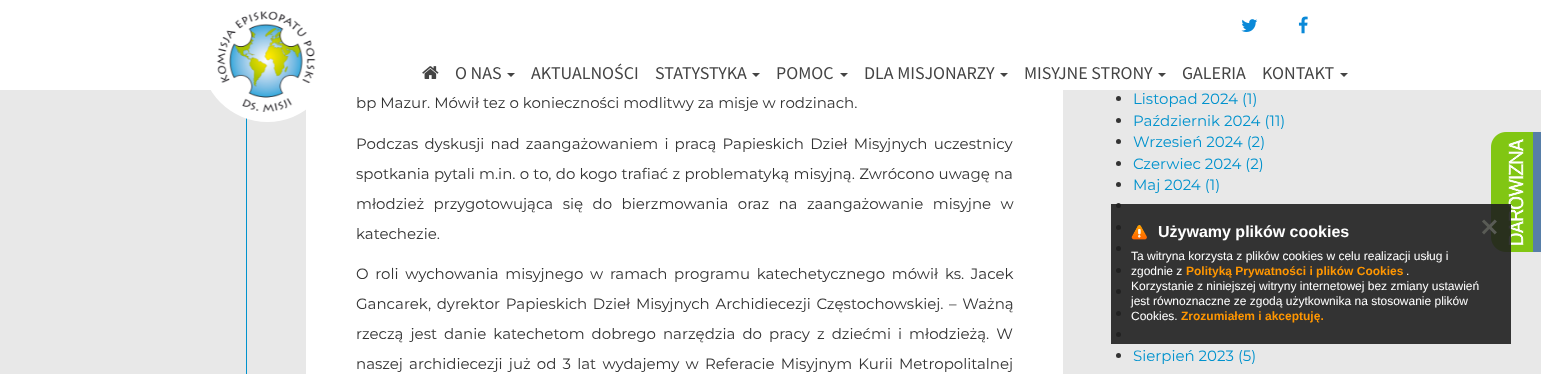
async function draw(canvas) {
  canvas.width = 1541
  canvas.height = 374
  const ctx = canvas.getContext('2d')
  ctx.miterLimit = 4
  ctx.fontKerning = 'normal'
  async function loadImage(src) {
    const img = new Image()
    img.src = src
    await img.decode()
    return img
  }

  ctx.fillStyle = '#e8e8e8'
  ctx.fillRect(0, 0, 1541, 374)
  ctx.fillStyle = '#fff'
  ctx.fillRect(0, 0, 1541, 90)
  ctx.drawImage(await loadImage('image0.png'), 1241, 19, 17, 13)
  ctx.drawImage(await loadImage('image1.png'), 1298, 16, 10, 18)
  ctx.fillStyle = '#0092cd'
  ctx.fillRect(246, 118, 1, 256)
  ctx.fillStyle = '#fff'
  ctx.fillRect(306, 90, 757, 284)
  ctx.beginPath()
  ctx.arc(267.5, 55.5, 66.5, 0, 2 * Math.PI)
  ctx.fill()
  ctx.drawImage(await loadImage('image2.png'), 216, 11, 100, 101)
  ctx.drawImage(await loadImage('image3.png'), 422, 66, 17, 13)
  ctx.font = '18px Source Sans Pro'
  ctx.fillStyle = '#444'
  ctx.fillText('O NAS', 455, 79)
  ctx.beginPath()
  ctx.moveTo(507, 73)
  ctx.lineTo(515, 73)
  ctx.lineTo(511, 77)
  ctx.closePath()
  ctx.fill()
  ctx.fillText('AKTUALNOŚCI', 531, 79)
  ctx.fillText('STATYSTYKA', 655, 79)
  ctx.beginPath()
  ctx.moveTo(752, 73)
  ctx.lineTo(760, 73)
  ctx.lineTo(756, 77)
  ctx.closePath()
  ctx.fill()
  ctx.fillText('POMOC', 776, 79)
  ctx.beginPath()
  ctx.moveTo(840, 73)
  ctx.lineTo(848, 73)
  ctx.lineTo(844, 77)
  ctx.closePath()
  ctx.fill()
  ctx.fillText('DLA MISJONARZY', 864, 79)
  ctx.beginPath()
  ctx.moveTo(1000, 73)
  ctx.lineTo(1008, 73)
  ctx.lineTo(1004, 77)
  ctx.closePath()
  ctx.fill()
  ctx.fillText('MISYJNE STRONY', 1024, 79)
  ctx.beginPath()
  ctx.moveTo(1158, 73)
  ctx.lineTo(1166, 73)
  ctx.lineTo(1162, 77)
  ctx.closePath()
  ctx.fill()
  ctx.fillText('GALERIA', 1182, 79)
  ctx.fillText('KONTAKT', 1262, 79)
  ctx.beginPath()
  ctx.moveTo(1340, 73)
  ctx.lineTo(1348, 73)
  ctx.lineTo(1344, 77)
  ctx.closePath()
  ctx.fill()
  ctx.font = '15px Montserrat'
  ctx.fillStyle = '#333'
  ctx.fillText('bp Mazur. Mówił tez o konieczności modlitwy za misje w rodzinach.', 356, 108)
  ctx.wordSpacing = '2.25px'
  ctx.fillText('Podczas dyskusji nad zaangażowaniem i pracą Papieskich Dzieł Misyjnych uczestnicy', 356, 149)
  ctx.wordSpacing = '0.3px'
  ctx.fillText('spotkania pytali m.in. o to, do kogo trafiać z problematyką misyjną. Zwrócono uwagę na', 356, 179)
  ctx.wordSpacing = '5.5px'
  ctx.fillText('młodzież przygotowująca się do bierzmowania oraz na zaangażowanie misyjne w', 356, 209)
  ctx.wordSpacing = '0px'
  ctx.fillText('katechezie.', 356, 239)
  ctx.wordSpacing = '2.75px'
  ctx.fillText('O roli wychowania misyjnego w ramach programu katechetycznego mówił ks. Jacek', 356, 279)
  ctx.wordSpacing = '1.75px'
  ctx.fillText('Gancarek, dyrektor Papieskich Dzieł Misyjnych Archidiecezji Częstochowskiej. – Ważną', 356, 309)
  ctx.wordSpacing = '3.1px'
  ctx.fillText('rzeczą jest danie katechetom dobrego narzędzia do pracy z dziećmi i młodzieżą. W', 356, 339)
  ctx.wordSpacing = '2.25px'
  ctx.fillText('naszej archidiecezji już od 3 lat wydajemy w Referacie Misyjnym Kurii Metropolitalnej', 356, 369)
  ctx.beginPath()
  ctx.arc(1118.5, 98.5, 2.5, 0, 2 * Math.PI)
  ctx.fill()
  ctx.wordSpacing = '0px'
  ctx.fillStyle = '#0092cd'
  ctx.fillText('Listopad 2024 (1)', 1133, 104)
  ctx.fillStyle = '#333'
  ctx.beginPath()
  ctx.arc(1118.5, 120.5, 2.5, 0, 2 * Math.PI)
  ctx.fill()
  ctx.fillStyle = '#0092cd'
  ctx.fillText('Październik 2024 (11)', 1133, 126)
  ctx.fillStyle = '#333'
  ctx.beginPath()
  ctx.arc(1118.5, 141.5, 2.5, 0, 2 * Math.PI)
  ctx.fill()
  ctx.fillStyle = '#0092cd'
  ctx.fillText('Wrzesień 2024 (2)', 1133, 147)
  ctx.fillStyle = '#333'
  ctx.beginPath()
  ctx.arc(1118.5, 163.5, 2.5, 0, 2 * Math.PI)
  ctx.fill()
  ctx.fillStyle = '#0092cd'
  ctx.fillText('Czerwiec 2024 (2)', 1133, 169)
  ctx.fillStyle = '#333'
  ctx.beginPath()
  ctx.arc(1118.5, 184.5, 2.5, 0, 2 * Math.PI)
  ctx.fill()
  ctx.fillStyle = '#0092cd'
  ctx.fillText('Maj 2024 (1)', 1133, 190)
  ctx.fillStyle = '#333'
  ctx.beginPath()
  ctx.arc(1118.5, 205.5, 2.5, 0, 2 * Math.PI)
  ctx.fill()
  ctx.beginPath()
  ctx.arc(1118.5, 227.5, 2.5, 0, 2 * Math.PI)
  ctx.fill()
  ctx.beginPath()
  ctx.arc(1118.5, 248.5, 2.5, 0, 2 * Math.PI)
  ctx.fill()
  ctx.beginPath()
  ctx.arc(1118.5, 270.5, 2.5, 0, 2 * Math.PI)
  ctx.fill()
  ctx.beginPath()
  ctx.arc(1118.5, 291.5, 2.5, 0, 2 * Math.PI)
  ctx.fill()
  ctx.beginPath()
  ctx.arc(1118.5, 313.5, 2.5, 0, 2 * Math.PI)
  ctx.fill()
  ctx.beginPath()
  ctx.arc(1118.5, 334.5, 2.5, 0, 2 * Math.PI)
  ctx.fill()
  ctx.beginPath()
  ctx.arc(1118.5, 355.5, 2.5, 0, 2 * Math.PI)
  ctx.fill()
  ctx.fillStyle = '#0092cd'
  ctx.fillText('Sierpień 2023 (5)', 1133, 361)
  ctx.drawImage(await loadImage('image4.png'), 1491, 132, 50, 120)
  ctx.fillStyle = '#1f1f1fe6'
  ctx.fillRect(1111, 204, 400, 140)
  ctx.drawImage(await loadImage('image5.png'), 1131, 225, 16, 15)
  ctx.font = 'bold 16px Liberation Sans'
  ctx.fillStyle = '#fff'
  ctx.fillText('Używamy plików cookies', 1158, 237)
  ctx.font = 'bold 24px DejaVu Sans'
  ctx.fillStyle = '#595b55'
  ctx.fillText('✕', 1479, 236)
  ctx.font = '12px Liberation Sans'
  ctx.fillStyle = '#fff'
  ctx.fillText('Ta witryna korzysta z plików cookies w celu realizacji usług i', 1131, 260)
  ctx.fillText('zgodnie z', 1131, 275)
  ctx.font = 'bold 12px Liberation Sans'
  ctx.fillStyle = '#ff9600'
  ctx.fillText('Polityką Prywatności i plików Cookies', 1186, 275)
  ctx.font = '12px Liberation Sans'
  ctx.fillStyle = '#fff'
  ctx.fillText('.', 1406, 275)
  ctx.fillText('Korzystanie z niniejszej witryny internetowej bez zmiany ustawień', 1131, 290)
  ctx.fillText('jest równoznaczne ze zgodą użytkownika na stosowanie plików', 1131, 305)
  ctx.fillText('Cookies.', 1131, 320)
  ctx.font = 'bold 12px Liberation Sans'
  ctx.fillStyle = '#ff9600'
  ctx.fillText('Zrozumiałem i akceptuję.', 1181, 320)
}

draw(document.querySelector('canvas'))
